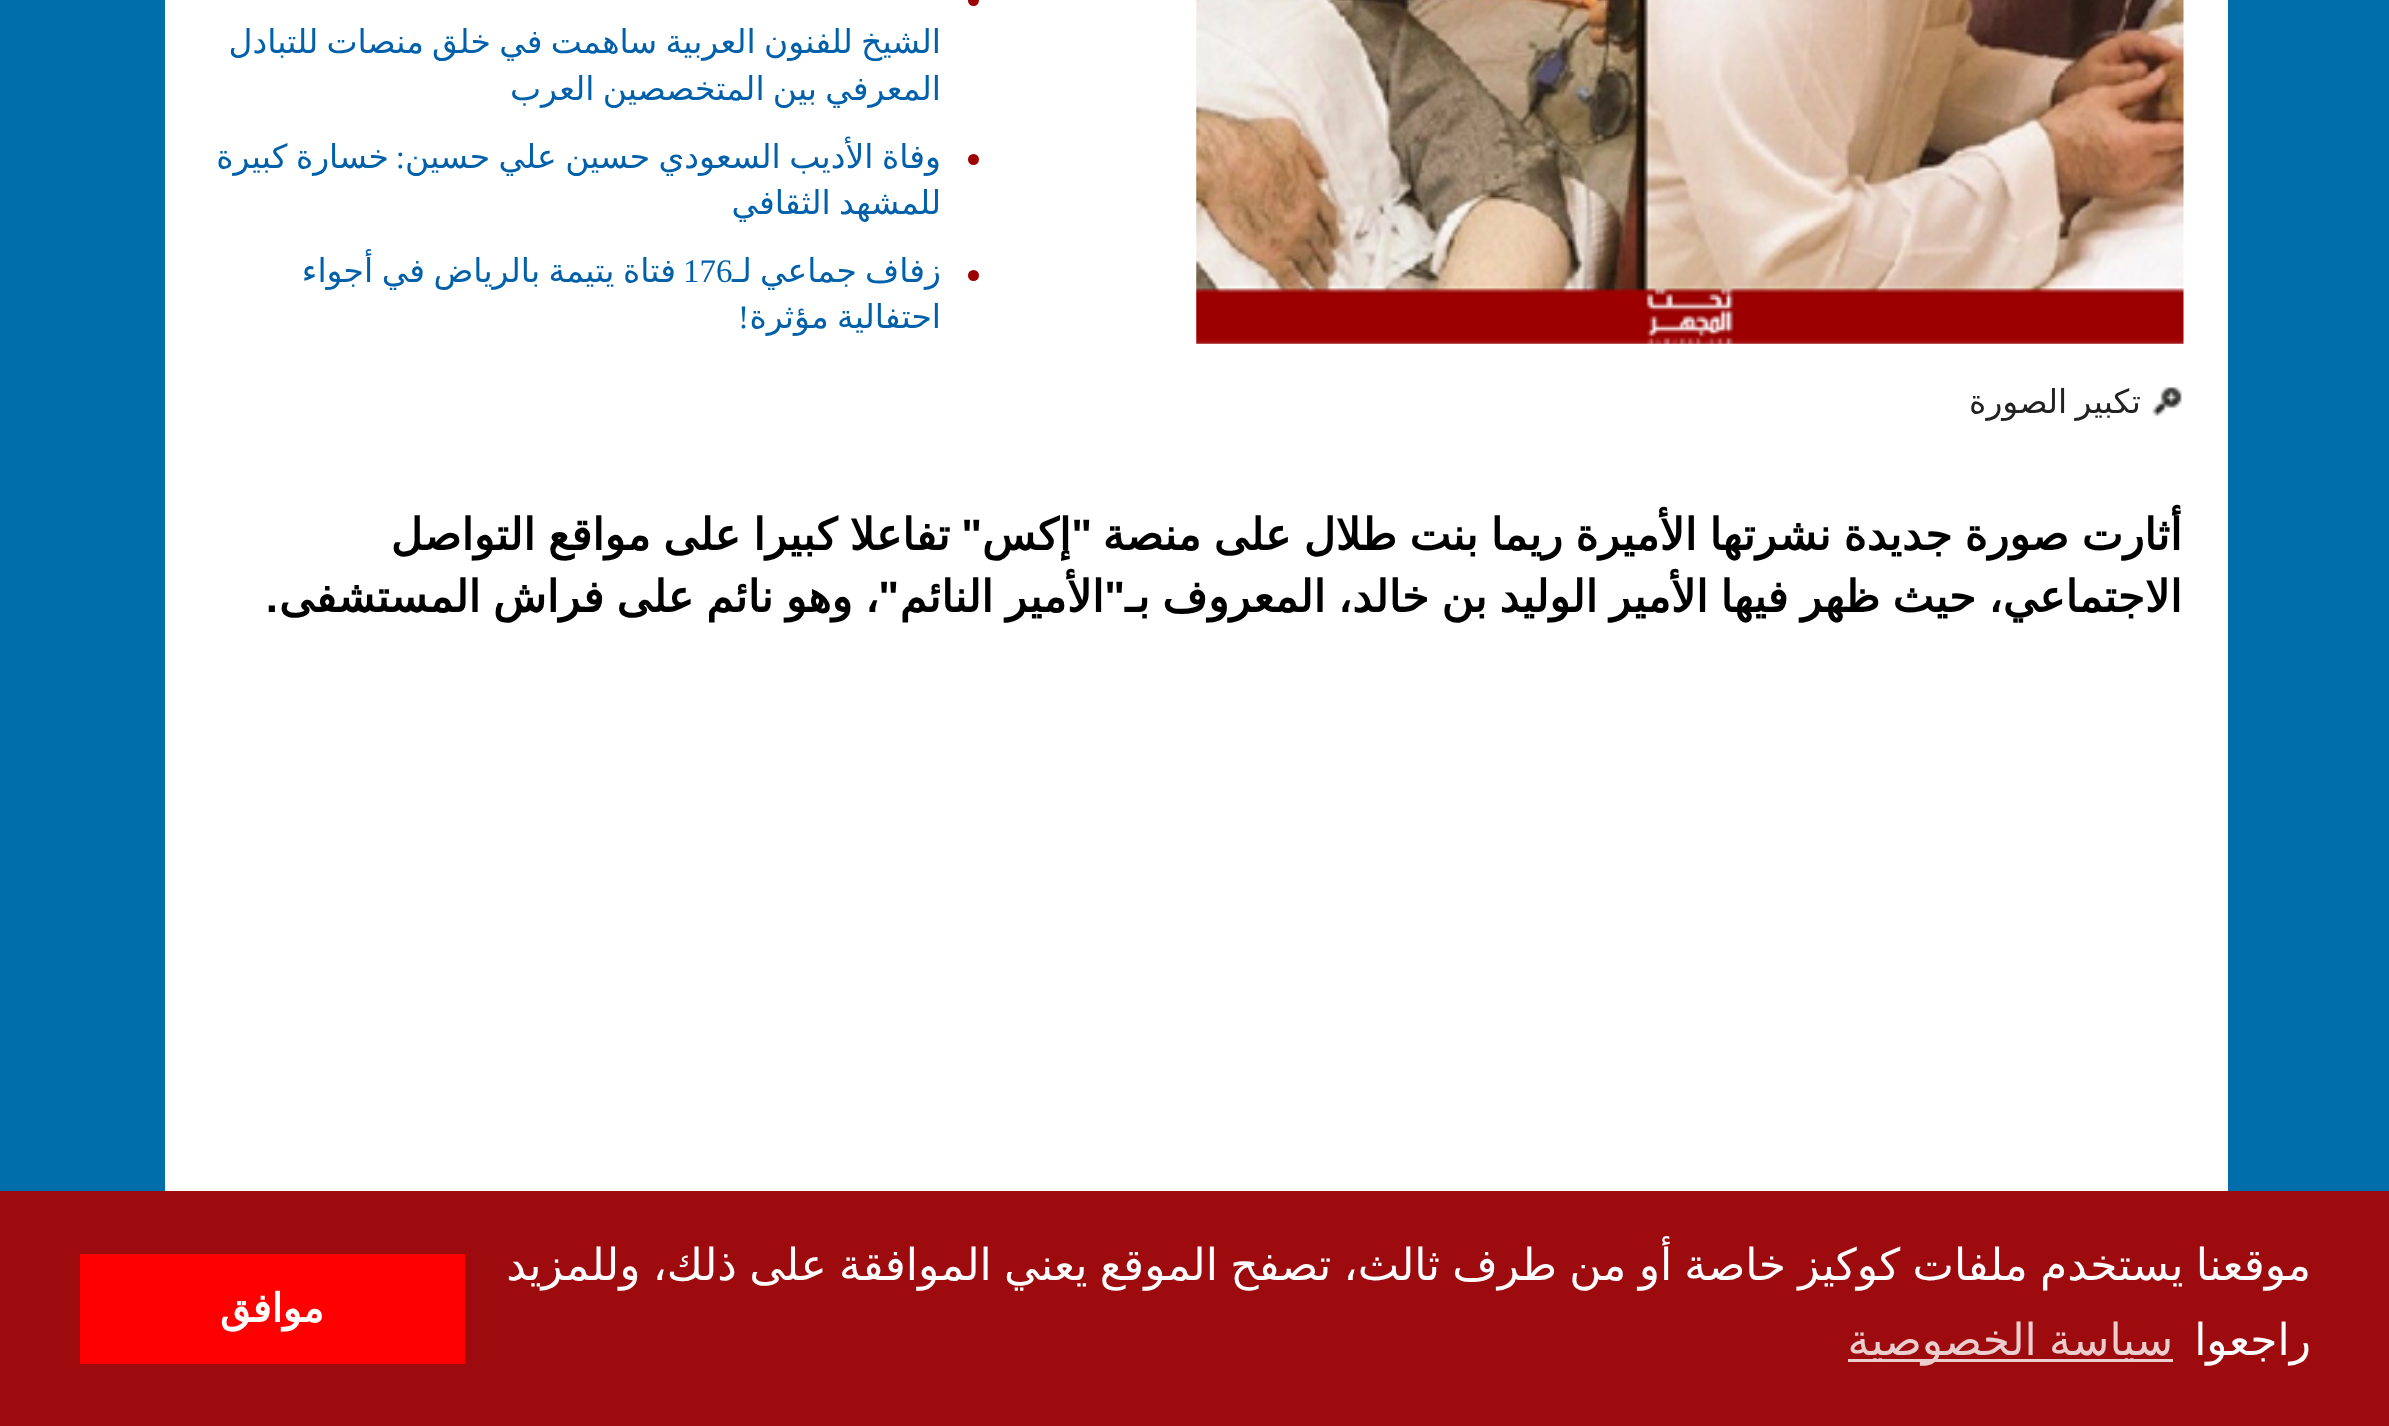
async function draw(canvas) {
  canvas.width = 2389
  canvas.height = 1426
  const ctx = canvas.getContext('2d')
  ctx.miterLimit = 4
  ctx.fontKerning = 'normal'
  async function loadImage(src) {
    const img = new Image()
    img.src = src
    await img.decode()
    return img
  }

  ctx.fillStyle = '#006eab'
  ctx.fillRect(0, 0, 2389, 1426)
  ctx.fillStyle = '#fff'
  ctx.fillRect(165, 0, 2063, 1191)
  ctx.drawImage(await loadImage('image0.png'), 1196, 0, 988, 344)
  ctx.fillStyle = '#9d0000'
  ctx.beginPath()
  ctx.arc(973.5, 0.5, 5.5, 0, 2 * Math.PI)
  ctx.fill()
  ctx.wordSpacing = '-2.25px'
  ctx.direction = 'rtl'
  ctx.font = '33px DejaVu Sans'
  ctx.fillStyle = '#0060aa'
  ctx.fillText('الشيخ للفنون العربية ساهمت في خلق منصات للتبادل', 941, 53)
  ctx.fillText('المعرفي بين المتخصصين العرب', 941, 100)
  ctx.fillStyle = '#9d0000'
  ctx.beginPath()
  ctx.arc(973.5, 159.5, 5.5, 0, 2 * Math.PI)
  ctx.fill()
  ctx.wordSpacing = '-2px'
  ctx.fillStyle = '#0060aa'
  ctx.fillText('وفاة الأديب السعودي حسين علي حسين', 941, 168)
  ctx.wordSpacing = '0px'
  ctx.font = '33px Liberation Serif'
  ctx.fillText(':', 405, 168)
  ctx.wordSpacing = '-2px'
  ctx.font = '33px DejaVu Sans'
  ctx.fillText('خسارة كبيرة', 389, 168)
  ctx.wordSpacing = '-2.25px'
  ctx.fillText('للمشهد الثقافي', 941, 214)
  ctx.fillStyle = '#9d0000'
  ctx.beginPath()
  ctx.arc(973.5, 275.5, 5.5, 0, 2 * Math.PI)
  ctx.fill()
  ctx.wordSpacing = '0px'
  ctx.direction = 'ltr'
  ctx.font = '33px Liberation Serif'
  ctx.fillStyle = '#0060aa'
  ctx.fillText('176', 683, 282)
  ctx.wordSpacing = '-2.25px'
  ctx.direction = 'rtl'
  ctx.font = '33px DejaVu Sans'
  ctx.fillText('زفاف جماعي لـ', 941, 282)
  ctx.wordSpacing = '-2px'
  ctx.fillText('فتاة يتيمة بالرياض في أجواء', 676, 282)
  ctx.wordSpacing = '-2.25px'
  ctx.fillText('احتفالية مؤثرة', 941, 328)
  ctx.wordSpacing = '0px'
  ctx.font = '33px Liberation Serif'
  ctx.fillText('!', 749, 328)
  ctx.drawImage(await loadImage('image1.png'), 2152, 387, 30, 30)
  ctx.wordSpacing = '-2.25px'
  ctx.font = '33px DejaVu Sans'
  ctx.fillStyle = '#222'
  ctx.fillText('تكبير الصورة', 2141, 413)
  ctx.wordSpacing = '-1.5px'
  ctx.font = 'bold 44px DejaVu Sans'
  ctx.fillStyle = '#000'
  ctx.fillText('أثارت صورة جديدة نشرتها الأميرة ريما بنت طلال على منصة', 2182, 550)
  ctx.wordSpacing = '0px'
  ctx.font = 'bold 44px Liberation Sans'
  ctx.fillText('"', 1092, 550)
  ctx.font = 'bold 44px DejaVu Sans'
  ctx.fillText('إكس', 1071, 550)
  ctx.font = 'bold 44px Liberation Sans'
  ctx.fillText('"', 982, 550)
  ctx.wordSpacing = '-1.5px'
  ctx.font = 'bold 44px DejaVu Sans'
  ctx.fillText('تفاعلا كبيرا على مواقع التواصل', 950, 550)
  ctx.wordSpacing = '-1.75px'
  ctx.fillText('الاجتماعي، حيث ظهر فيها الأمير الوليد بن خالد، المعروف بـ', 2182, 612)
  ctx.wordSpacing = '0px'
  ctx.font = 'bold 44px Liberation Sans'
  ctx.fillText('"', 1125, 612)
  ctx.wordSpacing = '-1.75px'
  ctx.font = 'bold 44px DejaVu Sans'
  ctx.fillText('الأمير النائم', 1104, 612)
  ctx.fillText('، وهو نائم على فراش المستشفى', 879, 612)
  ctx.wordSpacing = '0px'
  ctx.font = 'bold 44px Liberation Sans'
  ctx.fillText('"', 899, 612)
  ctx.fillText('.', 278, 612)
  ctx.fillStyle = '#9e0b0f'
  ctx.fillRect(0, 1191, 2389, 235)
  ctx.wordSpacing = '-1.75px'
  ctx.font = '44px DejaVu Sans'
  ctx.fillStyle = '#fff'
  ctx.fillText('موقعنا يستخدم ملفات كوكيز خاصة أو من طرف ثالث، تصفح الموقع يعني الموافقة على ذلك، وللمزيد', 2311, 1280)
  ctx.wordSpacing = '0px'
  ctx.fillText('راجعوا', 2311, 1355)
  ctx.fillStyle = '#eccecf'
  ctx.fillRect(1848, 1359, 325, 3)
  ctx.wordSpacing = '-1.75px'
  ctx.fillText('سياسة الخصوصية', 2173, 1355)
  ctx.fillStyle = '#f00'
  ctx.fillRect(80, 1254, 385, 110)
  ctx.wordSpacing = '0px'
  ctx.font = 'bold 39.5px DejaVu Sans'
  ctx.fillStyle = '#fff'
  ctx.fillText('موافق', 324, 1322)
}

draw(document.querySelector('canvas'))
